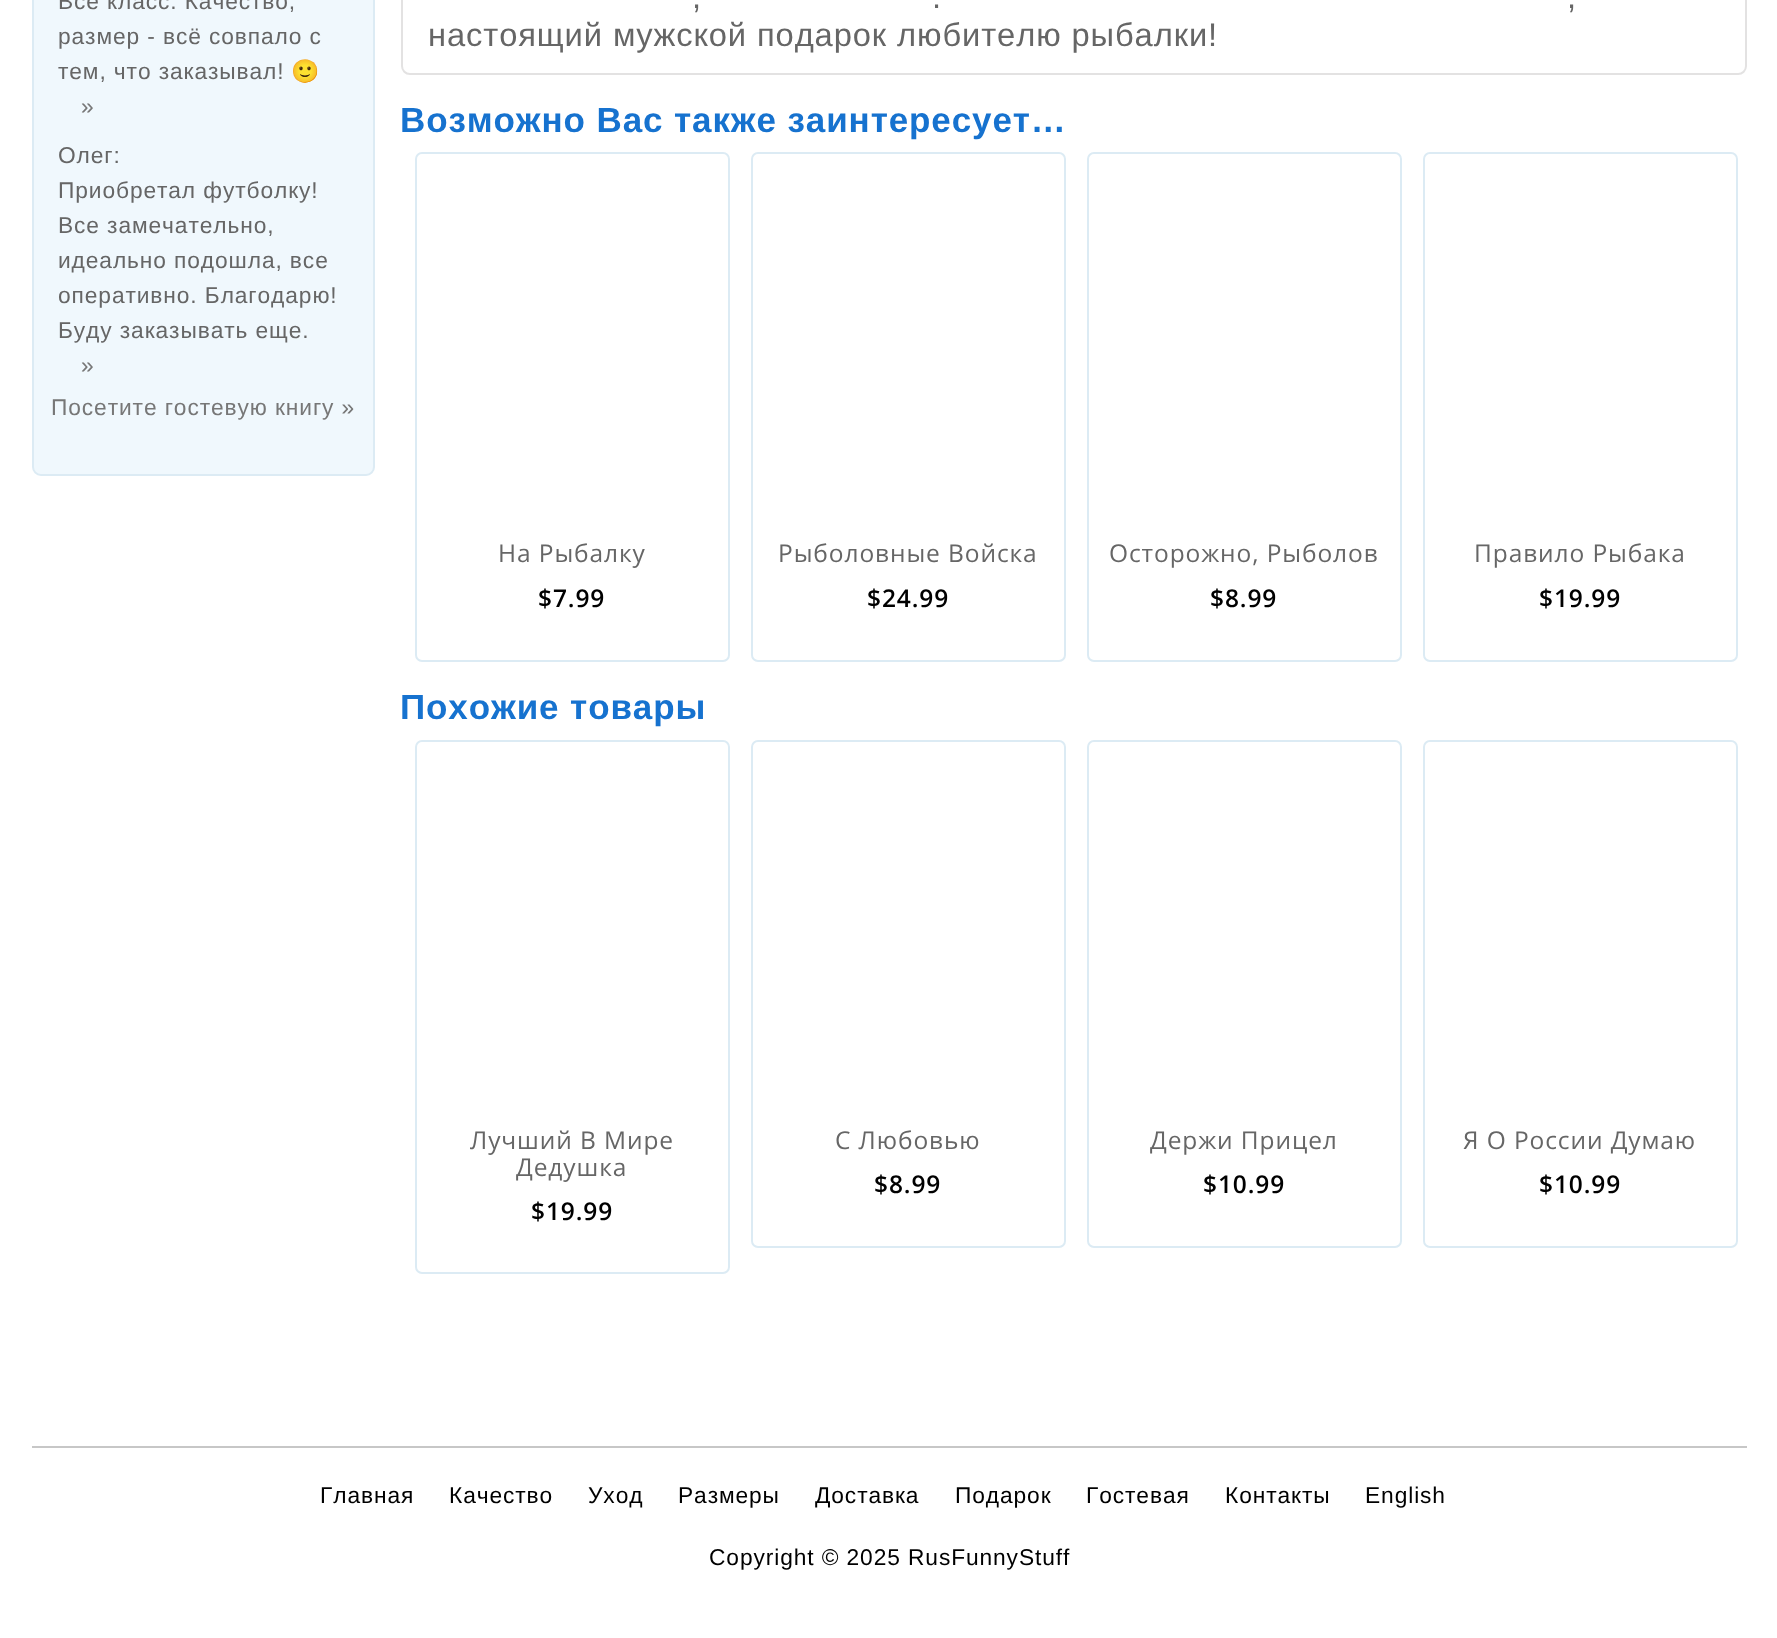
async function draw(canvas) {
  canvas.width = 1777
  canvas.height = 1638
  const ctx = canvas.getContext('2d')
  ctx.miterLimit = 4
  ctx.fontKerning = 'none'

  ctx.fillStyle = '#fff'
  ctx.fillRect(0, 0, 1777, 1638)
  ctx.fillStyle = '#f0f8fd'
  ctx.beginPath()
  ctx.roundRect(33, -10, 341, 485, 8)
  ctx.fill()
  ctx.strokeStyle = '#dcebf4'
  ctx.lineWidth = 2
  ctx.stroke()
  ctx.letterSpacing = '0.9px'
  ctx.font = '22.75px Liberation Sans'
  ctx.fillStyle = '#666'
  ctx.fillText('Всё класс. Качество,', 58, 9)
  ctx.fillText('размер - всё совпало с', 58, 44)
  ctx.fillText('тем, что заказывал!', 58, 79)
  ctx.font = '22.75px Noto Color Emoji'
  ctx.fillText('🙂', 291, 79)
  ctx.font = '22.75px Liberation Sans'
  ctx.fillStyle = '#777'
  ctx.fillText('»', 81, 114)
  ctx.fillStyle = '#666'
  ctx.fillText('Олег:', 58, 163)
  ctx.fillText('Приобретал футболку!', 58, 198)
  ctx.fillText('Все замечательно,', 58, 233)
  ctx.fillText('идеально подошла, все', 58, 268)
  ctx.fillText('оперативно. Благодарю!', 58, 303)
  ctx.fillText('Буду заказывать еще.', 58, 338)
  ctx.fillStyle = '#777'
  ctx.fillText('»', 81, 373)
  ctx.fillText('Посетите гостевую книгу »', 51, 415)
  ctx.beginPath()
  ctx.moveTo(402, -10)
  ctx.lineTo(1738, -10)
  ctx.bezierCurveTo(1742.5, -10, 1746, -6.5, 1746, -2)
  ctx.lineTo(1746, 66)
  ctx.bezierCurveTo(1746, 70.5, 1742.5, 74, 1738, 74)
  ctx.lineTo(410, 74)
  ctx.bezierCurveTo(405.5, 74, 402, 70.5, 402, 66)
  ctx.closePath()
  ctx.strokeStyle = '#e3e2e2'
  ctx.stroke()
  ctx.font = '32.7px Liberation Sans'
  ctx.fillStyle = '#666'
  ctx.fillText(',', 692, 8)
  ctx.fillText('.', 932, 8)
  ctx.fillText(',', 1567, 8)
  ctx.fillText('настоящий мужской подарок любителю рыбалки!', 428, 46)
  ctx.font = 'bold 35px Liberation Sans'
  ctx.fillStyle = '#1672cf'
  ctx.fillText('Возможно Вас также заинтересует…', 400, 132)
  ctx.beginPath()
  ctx.roundRect(416, 153, 313, 508, 6)
  ctx.strokeStyle = '#dcebf4'
  ctx.stroke()
  ctx.font = '24.5px Open Sans'
  ctx.fillStyle = '#666'
  ctx.fillText('На Рыбалку', 498, 562)
  ctx.font = '600 24.5px Open Sans'
  ctx.fillStyle = '#000'
  ctx.fillText('$7.99', 538, 607)
  ctx.beginPath()
  ctx.roundRect(752, 153, 313, 508, 6)
  ctx.stroke()
  ctx.font = '24.5px Open Sans'
  ctx.fillStyle = '#666'
  ctx.fillText('Рыболовные Войска', 778, 562)
  ctx.font = '600 24.5px Open Sans'
  ctx.fillStyle = '#000'
  ctx.fillText('$24.99', 867, 607)
  ctx.beginPath()
  ctx.roundRect(1088, 153, 313, 508, 6)
  ctx.stroke()
  ctx.font = '24.5px Open Sans'
  ctx.fillStyle = '#666'
  ctx.fillText('Осторожно, Рыболов', 1109, 562)
  ctx.font = '600 24.5px Open Sans'
  ctx.fillStyle = '#000'
  ctx.fillText('$8.99', 1210, 607)
  ctx.beginPath()
  ctx.roundRect(1424, 153, 313, 508, 6)
  ctx.stroke()
  ctx.font = '24.5px Open Sans'
  ctx.fillStyle = '#666'
  ctx.fillText('Правило Рыбака', 1474, 562)
  ctx.font = '600 24.5px Open Sans'
  ctx.fillStyle = '#000'
  ctx.fillText('$19.99', 1539, 607)
  ctx.font = 'bold 35px Liberation Sans'
  ctx.fillStyle = '#1672cf'
  ctx.fillText('Похожие товары', 400, 719)
  ctx.beginPath()
  ctx.roundRect(416, 741, 313, 532, 6)
  ctx.stroke()
  ctx.font = '24.5px Open Sans'
  ctx.fillStyle = '#666'
  ctx.fillText('Лучший В Мире', 470, 1149)
  ctx.fillText('Дедушка', 516, 1176)
  ctx.font = '600 24.5px Open Sans'
  ctx.fillStyle = '#000'
  ctx.fillText('$19.99', 531, 1220)
  ctx.beginPath()
  ctx.roundRect(752, 741, 313, 506, 6)
  ctx.stroke()
  ctx.font = '24.5px Open Sans'
  ctx.fillStyle = '#666'
  ctx.fillText('С Любовью', 835, 1149)
  ctx.font = '600 24.5px Open Sans'
  ctx.fillStyle = '#000'
  ctx.fillText('$8.99', 874, 1193)
  ctx.beginPath()
  ctx.roundRect(1088, 741, 313, 506, 6)
  ctx.stroke()
  ctx.font = '24.5px Open Sans'
  ctx.fillStyle = '#666'
  ctx.fillText('Держи Прицел', 1150, 1149)
  ctx.font = '600 24.5px Open Sans'
  ctx.fillStyle = '#000'
  ctx.fillText('$10.99', 1203, 1193)
  ctx.beginPath()
  ctx.roundRect(1424, 741, 313, 506, 6)
  ctx.stroke()
  ctx.font = '24.5px Open Sans'
  ctx.fillStyle = '#666'
  ctx.fillText('Я О России Думаю', 1463, 1149)
  ctx.font = '600 24.5px Open Sans'
  ctx.fillStyle = '#000'
  ctx.fillText('$10.99', 1539, 1193)
  ctx.fillStyle = '#c7c7c7'
  ctx.fillRect(32, 1446, 1715, 2)
  ctx.font = '22.75px Liberation Sans'
  ctx.fillStyle = '#000'
  ctx.fillText('Главная', 320, 1503)
  ctx.fillText('Качество', 449, 1503)
  ctx.fillText('Уход', 588, 1503)
  ctx.fillText('Размеры', 678, 1503)
  ctx.fillText('Доставка', 815, 1503)
  ctx.fillText('Подарок', 955, 1503)
  ctx.fillText('Гостевая', 1086, 1503)
  ctx.fillText('Контакты', 1225, 1503)
  ctx.fillText('English', 1365, 1503)
  ctx.fillText('Copyright © 2025 RusFunnyStuff', 709, 1565)
}

draw(document.querySelector('canvas'))
